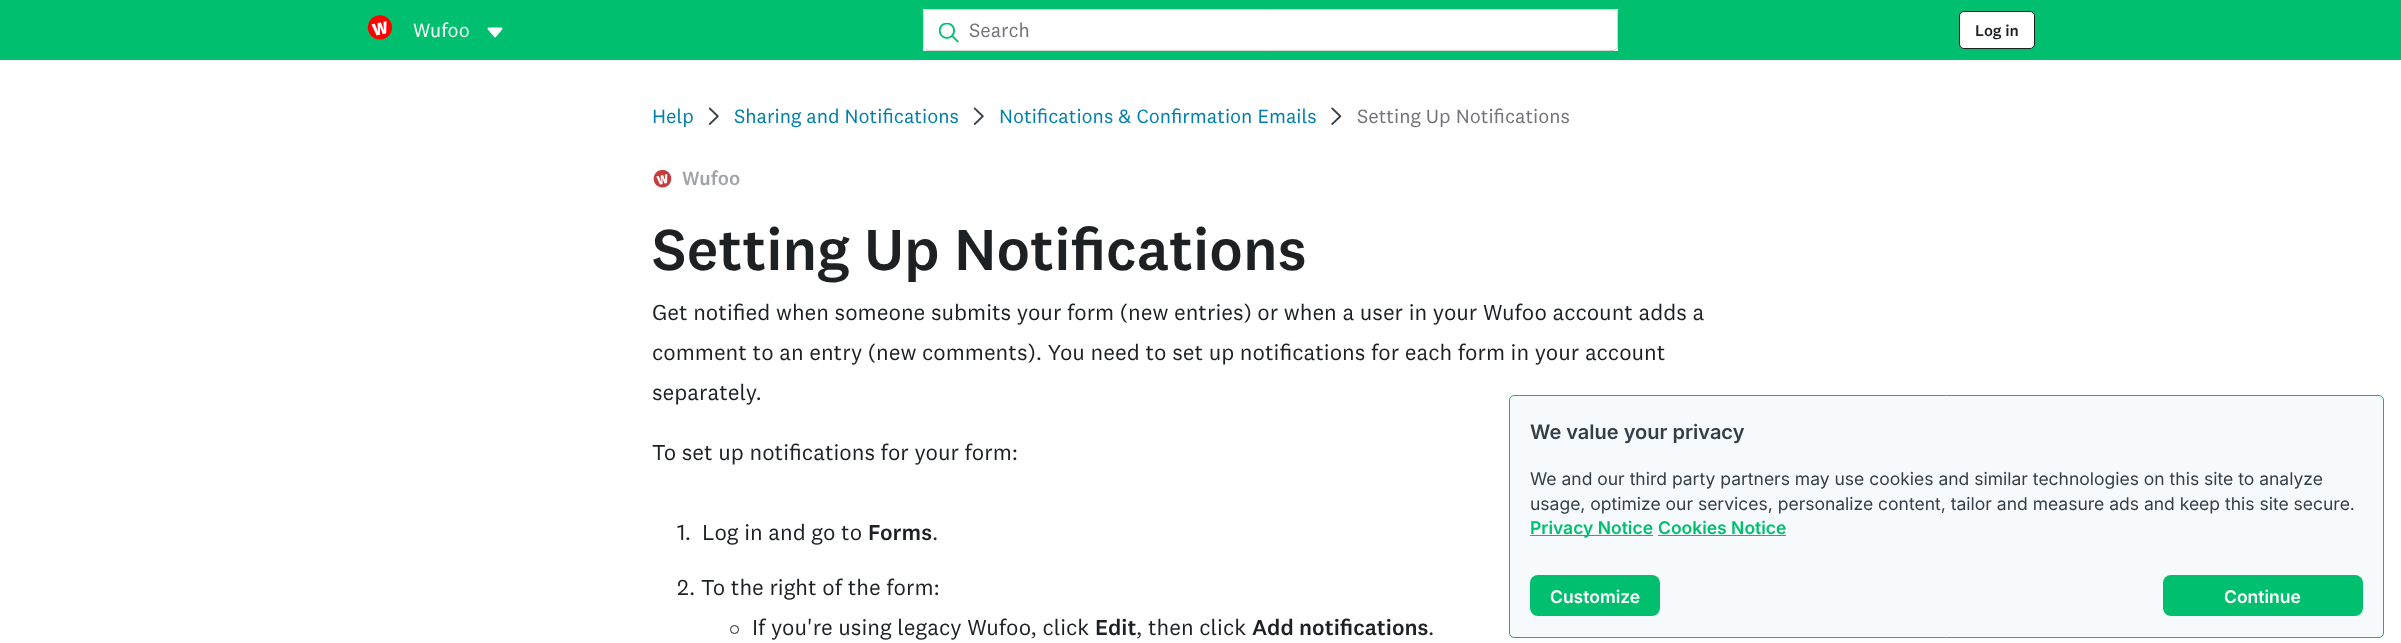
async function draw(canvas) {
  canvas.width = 2401
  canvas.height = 643
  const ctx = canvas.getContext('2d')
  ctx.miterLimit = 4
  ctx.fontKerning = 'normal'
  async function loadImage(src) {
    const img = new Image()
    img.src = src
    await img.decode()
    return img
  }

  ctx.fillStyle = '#fff'
  ctx.fillRect(0, 0, 2401, 643)
  ctx.fillStyle = '#00bf6f'
  ctx.fillRect(0, 0, 2401, 60)
  ctx.drawImage(await loadImage('image0.png'), 367, 15, 26, 25)
  ctx.font = '20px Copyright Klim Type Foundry'
  ctx.fillStyle = '#fff'
  ctx.fillText('Wufoo', 413, 37)
  ctx.drawImage(await loadImage('image1.png'), 487, 27, 16, 11)
  ctx.fillRect(923, 9, 695, 42)
  ctx.beginPath()
  ctx.roundRect(923.5, 9.5, 694, 41, 4.5)
  ctx.strokeStyle = '#d0d2d3'
  ctx.stroke()
  ctx.drawImage(await loadImage('image2.png'), 939, 23, 20, 20)
  ctx.fillStyle = '#73747a'
  ctx.fillText('Search', 969, 37)
  ctx.fillStyle = '#fff'
  ctx.beginPath()
  ctx.roundRect(1959.5, 11.5, 75, 37, 4.5)
  ctx.fill()
  ctx.strokeStyle = '#1e2124'
  ctx.stroke()
  ctx.font = '500 16px Copyright Klim Type Foundry'
  ctx.fillStyle = '#1e2124'
  ctx.fillText('Log in', 1975, 36)
  ctx.font = '20px Copyright Klim Type Foundry'
  ctx.fillStyle = '#007faa'
  ctx.fillText('Help', 652, 123)
  ctx.drawImage(await loadImage('image3.png'), 708, 107, 11, 18)
  ctx.fillText('Sharing and Notifications', 734, 123)
  ctx.drawImage(await loadImage('image3.png'), 973, 107, 11, 18)
  ctx.fillText('Notifications & Confirmation Emails', 999, 123)
  ctx.drawImage(await loadImage('image4.png'), 1331, 107, 11, 18)
  ctx.fillStyle = '#73747a'
  ctx.fillText('Setting Up Notifications', 1357, 123)
  ctx.drawImage(await loadImage('image5.png'), 653, 169, 19, 19)
  ctx.font = '500 20px Copyright Klim Type Foundry'
  ctx.fillStyle = '#a1a4a7'
  ctx.fillText('Wufoo', 682, 185)
  ctx.font = '500 60px Copyright Klim Type Foundry'
  ctx.fillStyle = '#1e2124'
  ctx.fillText('Setting Up Notifications', 652, 270)
  ctx.font = '22.5px Copyright Klim Type Foundry'
  ctx.fillText('Get notified when someone submits your form (new entries) or when a user in your Wufoo account adds a', 652, 320)
  ctx.fillText('comment to an entry (new comments). You need to set up notifications for each form in your account', 652, 360)
  ctx.fillText('separately.', 652, 400)
  ctx.fillText('To set up notifications for your form:', 652, 460)
  ctx.fillText('1.', 677, 540)
  ctx.fillText('Log in and go to', 702, 540)
  ctx.font = '500 22.5px Copyright Klim Type Foundry'
  ctx.fillText('Forms', 868, 540)
  ctx.font = '22.5px Copyright Klim Type Foundry'
  ctx.fillText('.', 932, 540)
  ctx.fillText('2. To the right of the form:', 677, 595)
  ctx.beginPath()
  ctx.arc(734.5, 629.5, 4, 0, 2 * Math.PI)
  ctx.stroke()
  ctx.fillText('If you\'re using legacy Wufoo, click', 752, 635)
  ctx.font = '500 22.5px Copyright Klim Type Foundry'
  ctx.fillText('Edit', 1095, 635)
  ctx.font = '22.5px Copyright Klim Type Foundry'
  ctx.fillText(', then click', 1136, 635)
  ctx.font = '500 22.5px Copyright Klim Type Foundry'
  ctx.fillText('Add notifications', 1252, 635)
  ctx.font = '22.5px Copyright Klim Type Foundry'
  ctx.fillText('.', 1428, 635)
  ctx.fillStyle = '#f7fafc'
  ctx.beginPath()
  ctx.roundRect(1509.5, 395.5, 874, 242, 4.5)
  ctx.fill()
  ctx.strokeStyle = '#00bf6f'
  ctx.stroke()
  ctx.font = '600 20px Inter'
  ctx.fillStyle = '#333e48'
  ctx.fillText('We value your privacy', 1530, 439)
  ctx.font = '17.5px Inter'
  ctx.fillText('We and our third party partners may use cookies and similar technologies on this site to analyze', 1530, 485)
  ctx.fillText('usage, optimize our services, personalize content, tailor and measure ads and keep this site secure.', 1530, 510)
  ctx.fillStyle = '#00bf6f'
  ctx.fillRect(1530, 535, 123, 1)
  ctx.font = '600 17.5px Inter'
  ctx.fillText('Privacy Notice', 1530, 534)
  ctx.fillText('Cookies Notice', 1658, 534)
  ctx.fillRect(1658, 535, 128, 1)
  ctx.beginPath()
  ctx.roundRect(1530, 575, 130, 41, 8)
  ctx.fill()
  ctx.fillStyle = '#fff'
  ctx.fillText('Customize', 1550, 603)
  ctx.fillStyle = '#00bf6f'
  ctx.beginPath()
  ctx.roundRect(2163, 575, 200, 41, 8)
  ctx.fill()
  ctx.fillStyle = '#fff'
  ctx.fillText('Continue', 2224, 603)
}

draw(document.querySelector('canvas'))
